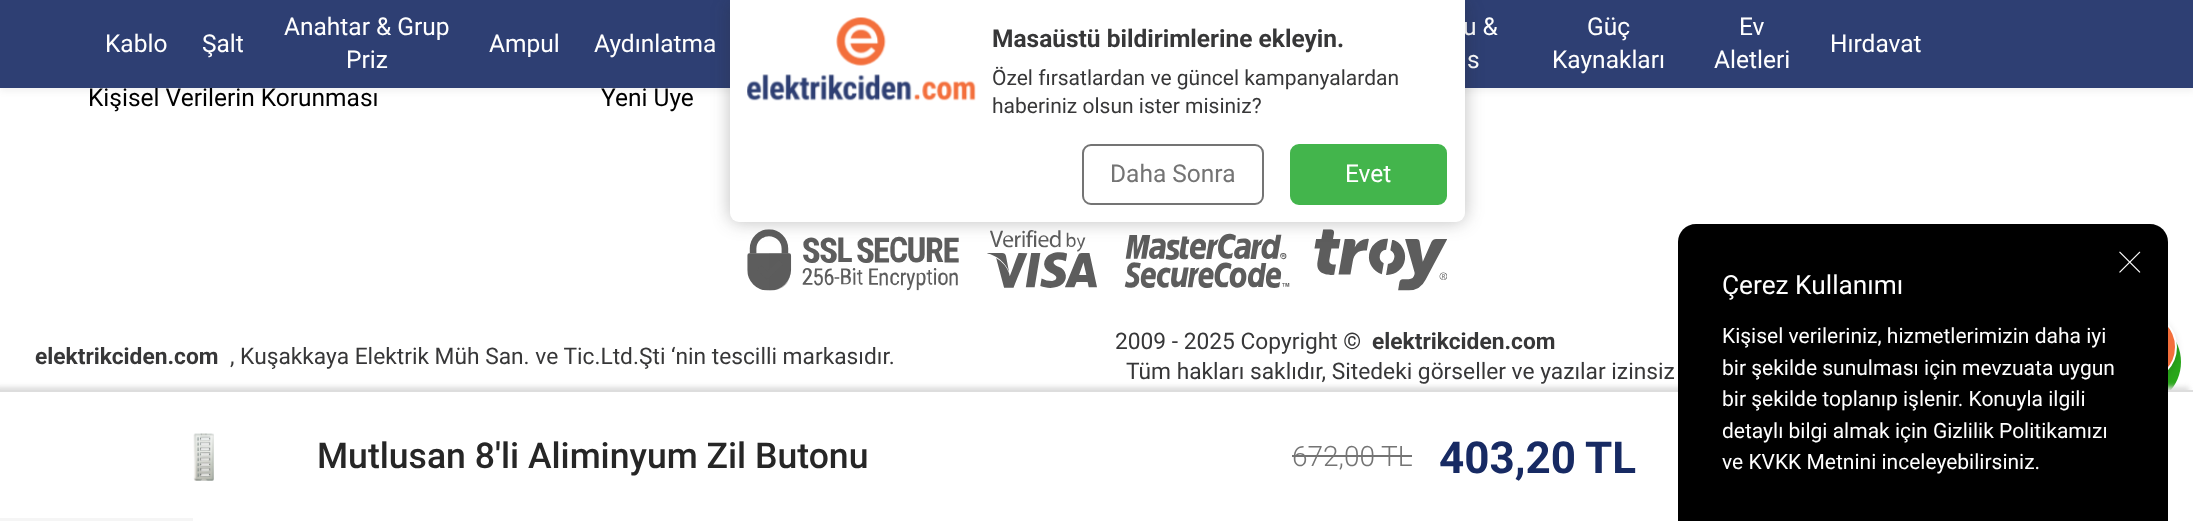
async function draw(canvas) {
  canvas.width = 2193
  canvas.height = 521
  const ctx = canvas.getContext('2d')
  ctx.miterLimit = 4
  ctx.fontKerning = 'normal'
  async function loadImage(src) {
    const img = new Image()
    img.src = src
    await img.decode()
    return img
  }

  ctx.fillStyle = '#fff'
  ctx.fillRect(0, 0, 2193, 521)
  ctx.fillStyle = '#0000000f'
  ctx.filter = 'blur(3.5px)'
  ctx.beginPath()
  ctx.rect(0, 4, 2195, 87)
  ctx.fill()
  ctx.filter = 'none'
  ctx.font = '24.5px Roboto'
  ctx.fillStyle = '#000'
  ctx.fillText('Kişisel Verilerin Korunması', 88, 106)
  ctx.fillText('Yeni Üye', 601, 106)
  ctx.fillStyle = '#2e3f73'
  ctx.fillRect(0, 0, 2193, 88)
  ctx.fillStyle = '#fff'
  ctx.fillText('Kablo', 105, 52)
  ctx.fillText('Şalt', 202, 52)
  ctx.fillText('Anahtar & Grup', 284, 35)
  ctx.fillText('Priz', 346, 68)
  ctx.fillText('Ampul', 489, 52)
  ctx.fillText('Aydınlatma', 594, 52)
  ctx.fillText('u &', 1463, 35)
  ctx.fillText('s', 1467, 68)
  ctx.fillText('Güç', 1587, 35)
  ctx.fillText('Kaynakları', 1552, 68)
  ctx.fillText('Ev', 1739, 35)
  ctx.fillText('Aletleri', 1714, 68)
  ctx.fillText('Hırdavat', 1830, 52)
  ctx.drawImage(await loadImage('image0.png'), 2168, 341, 13, 49)
  ctx.fillStyle = '#00000021'
  ctx.filter = 'blur(3.5px)'
  ctx.beginPath()
  ctx.roundRect(2107, 315, 70, 70, 35)
  ctx.fill()
  ctx.filter = 'none'
  ctx.fillStyle = '#f36f3c'
  ctx.beginPath()
  ctx.arc(2142, 347, 34, 0, 2 * Math.PI)
  ctx.fill()
  ctx.strokeStyle = '#fff'
  ctx.lineWidth = 2
  ctx.stroke()
  ctx.drawImage(await loadImage('image2.png'), 747, 229, 700, 62)
  ctx.fillStyle = '#2828284d'
  ctx.filter = 'blur(9px)'
  ctx.beginPath()
  ctx.roundRect(730, 0, 735, 222, 9)
  ctx.fill()
  ctx.filter = 'none'
  ctx.fillStyle = '#fff'
  ctx.beginPath()
  ctx.roundRect(730, 0, 735, 222, [0, 0, 9, 9])
  ctx.fill()
  ctx.drawImage(await loadImage('image1.png'), 747, 17, 229, 84)
  ctx.font = 'bold 24.5px Roboto'
  ctx.fillStyle = '#373738'
  ctx.fillText('Masaüstü bildirimlerine ekleyin.', 992, 47)
  ctx.font = '21px Roboto'
  ctx.fillText('Özel fırsatlardan ve güncel kampanyalardan', 992, 85)
  ctx.fillText('haberiniz olsun ister misiniz?', 992, 113)
  ctx.beginPath()
  ctx.roundRect(1083, 145, 180, 59, 8)
  ctx.strokeStyle = '#747474'
  ctx.stroke()
  ctx.font = '24.5px Roboto'
  ctx.fillStyle = '#747474'
  ctx.fillText('Daha Sonra', 1110, 182)
  ctx.fillStyle = '#43b54c'
  ctx.beginPath()
  ctx.roundRect(1291, 145, 155, 59, 8)
  ctx.fill()
  ctx.strokeStyle = '#43b54c'
  ctx.stroke()
  ctx.fillStyle = '#fff'
  ctx.fillText('Evet', 1345, 182)
  ctx.font = 'bold 22.75px Roboto'
  ctx.fillStyle = '#373738'
  ctx.fillText('elektrikciden.com', 35, 364)
  ctx.font = '22.75px Roboto'
  ctx.fillText(', Kuşakkaya Elektrik Müh San. ve Tic.Ltd.Şti ‘nin tescilli markasıdır.', 230, 364)
  ctx.fillText('2009 - 2025 Copyright ©', 1115, 349)
  ctx.font = 'bold 22.75px Roboto'
  ctx.fillText('elektrikciden.com', 1372, 349)
  ctx.font = '22.75px Roboto'
  ctx.fillText('Tüm hakları saklıdır, Sitedeki görseller ve yazılar izinsiz', 1126, 379)
  ctx.fillStyle = '#ddd'
  ctx.filter = 'blur(2.5px)'
  ctx.beginPath()
  ctx.rect(-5, 387, 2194, 131)
  ctx.fill()
  ctx.filter = 'none'
  ctx.fillStyle = '#fff'
  ctx.fillRect(0, 392, 2193, 129)
  ctx.fillStyle = '#ddd'
  ctx.fillRect(0, 390, 2193, 2)
  ctx.fillStyle = '#000'
  ctx.beginPath()
  ctx.moveTo(1696, 224)
  ctx.lineTo(2150, 224)
  ctx.bezierCurveTo(2160, 224, 2168, 232, 2168, 242)
  ctx.lineTo(2168, 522)
  ctx.lineTo(1678, 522)
  ctx.lineTo(1678, 242)
  ctx.bezierCurveTo(1678, 232, 1686, 224, 1696, 224)
  ctx.closePath()
  ctx.fill()
  ctx.drawImage(await loadImage('image3.png'), 2119, 251, 22, 22)
  ctx.font = '26.25px Roboto'
  ctx.fillStyle = '#fff'
  ctx.fillText('Çerez Kullanımı', 1722, 294)
  ctx.font = '21px Roboto'
  ctx.fillText('Kişisel verileriniz, hizmetlerimizin daha iyi', 1722, 343)
  ctx.fillText('bir şekilde sunulması için mevzuata uygun', 1722, 375)
  ctx.fillText('bir şekilde toplanıp işlenir. Konuyla ilgili', 1722, 406)
  ctx.fillText('detaylı bilgi almak için Gizlilik Politikamızı', 1722, 438)
  ctx.fillText('ve KVKK Metnini inceleyebilirsiniz.', 1722, 469)
  ctx.drawImage(await loadImage('image4.png'), 193, 433, 21, 48)
  ctx.font = '500 35.6px Roboto'
  ctx.fillStyle = '#262626'
  ctx.fillText('Mutlusan 8\'li Aliminyum Zil Butonu', 317, 468)
  ctx.font = '300 28px Roboto'
  ctx.fillStyle = '#747474'
  ctx.fillText('672,00', 1292, 466)
  ctx.fillRect(1292, 455, 84, 2)
  ctx.fillText('TL', 1381, 466)
  ctx.fillRect(1376, 455, 36, 2)
  ctx.font = 'bold 44px Roboto'
  ctx.fillStyle = '#172a63'
  ctx.fillText('403,20', 1439, 473)
  ctx.fillText('TL', 1585, 473)
  ctx.fillStyle = '#f5f5f5'
  ctx.fillRect(0, 518, 193, 3)
}

draw(document.querySelector('canvas'))
